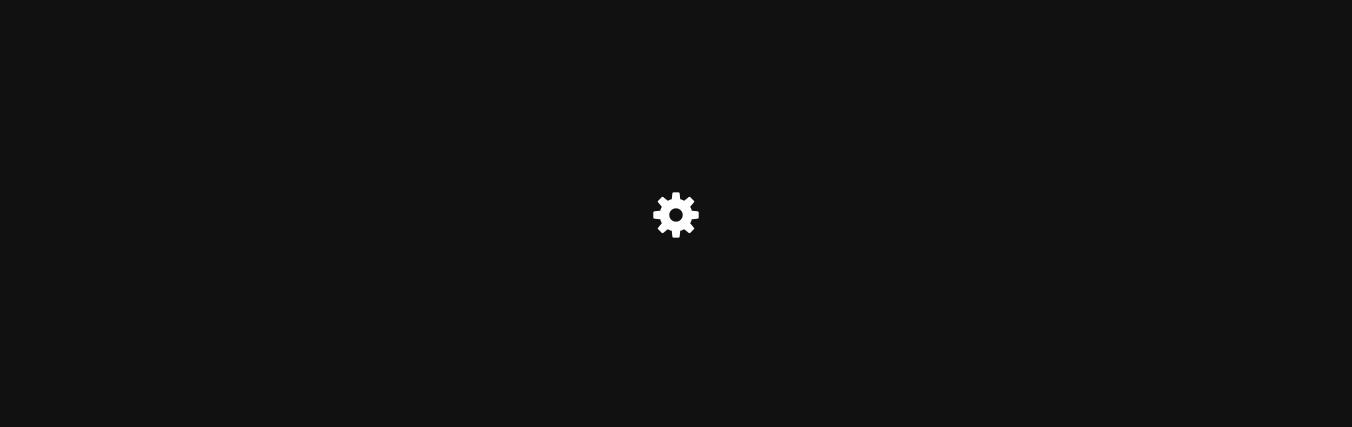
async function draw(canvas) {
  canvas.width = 1352
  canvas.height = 427
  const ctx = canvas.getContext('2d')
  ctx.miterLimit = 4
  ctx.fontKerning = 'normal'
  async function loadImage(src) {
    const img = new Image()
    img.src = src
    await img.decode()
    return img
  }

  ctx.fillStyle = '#111'
  ctx.fillRect(0, 0, 1352, 427)
  ctx.drawImage(await loadImage('image0.png'), 653, 192, 46, 46)
}

draw(document.querySelector('canvas'))
